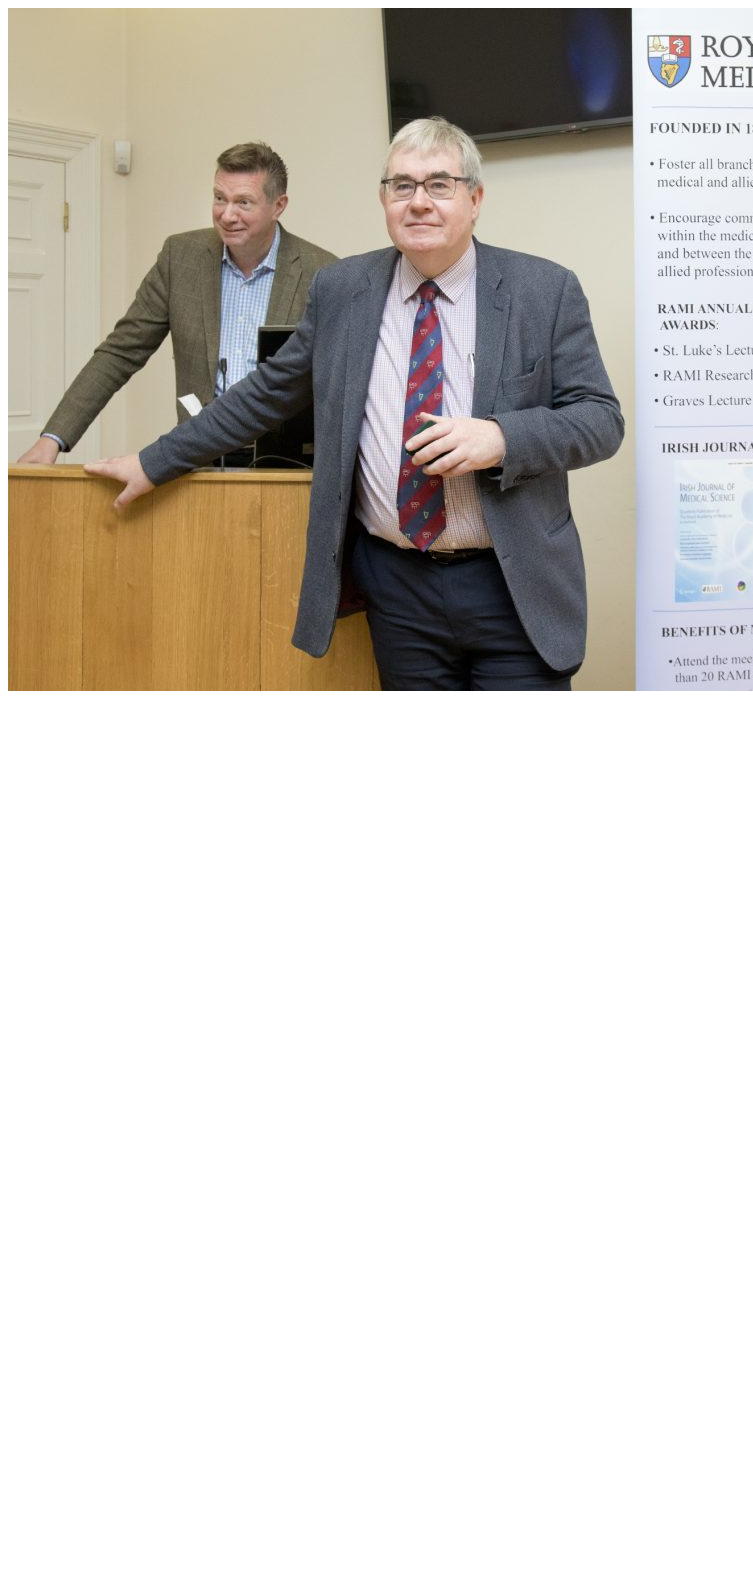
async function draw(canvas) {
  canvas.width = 753
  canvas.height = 1579
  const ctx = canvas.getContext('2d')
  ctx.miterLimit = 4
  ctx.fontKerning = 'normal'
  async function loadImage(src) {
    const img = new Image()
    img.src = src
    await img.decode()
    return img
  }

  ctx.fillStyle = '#fff'
  ctx.fillRect(0, 0, 753, 1579)
  ctx.drawImage(await loadImage('image0.png'), 8, 8, 745, 683)
}

draw(document.querySelector('canvas'))
